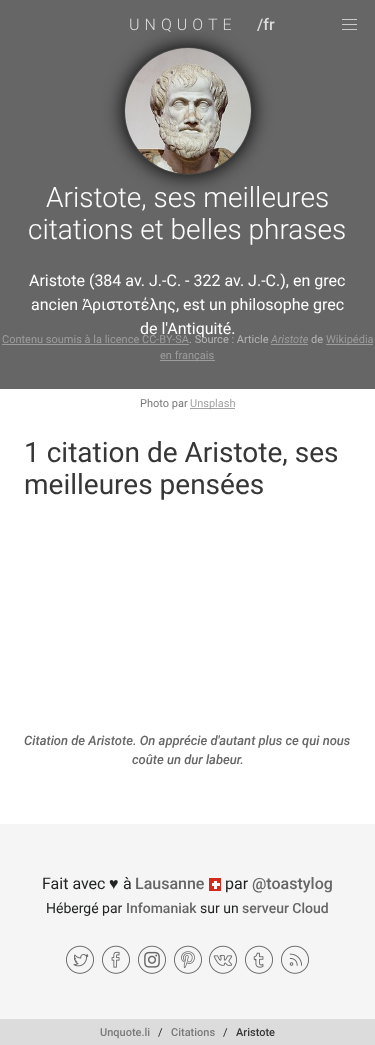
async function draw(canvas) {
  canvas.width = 375
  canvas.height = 1045
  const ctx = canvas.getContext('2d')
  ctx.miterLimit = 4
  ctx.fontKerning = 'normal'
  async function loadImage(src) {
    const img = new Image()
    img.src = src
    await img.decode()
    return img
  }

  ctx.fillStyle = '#fff'
  ctx.fillRect(0, 0, 375, 1045)
  ctx.fillStyle = '#666'
  ctx.fillRect(0, 0, 375, 389)
  ctx.fillStyle = '#000'
  ctx.filter = 'blur(10px)'
  ctx.beginPath()
  ctx.roundRect(124, 47, 128, 128, 64)
  ctx.fill()
  ctx.filter = 'none'
  ctx.letterSpacing = '5px'
  ctx.font = '300 16px Roboto'
  ctx.fillStyle = '#dbdbdb'
  ctx.fillText('UNQUOTE', 129, 30)
  ctx.letterSpacing = '0px'
  ctx.font = '500 16px Roboto'
  ctx.fillText('/fr', 257, 30)
  ctx.fillStyle = '#ccc'
  ctx.fillRect(342, 19, 15, 1)
  ctx.fillRect(342, 24, 15, 1)
  ctx.fillRect(342, 29, 15, 1)
  ctx.beginPath()
  ctx.arc(188, 111, 63.5, 0, 2 * Math.PI)
  ctx.strokeStyle = '#ffffff1a'
  ctx.stroke()
  ctx.drawImage(await loadImage('image0.png'), 125, 48, 126, 126)
  ctx.font = '300 28px Roboto'
  ctx.fillStyle = '#fff'
  ctx.fillText('Aristote, ses meilleures', 46, 207)
  ctx.fillText('citations et belles phrases', 28, 239)
  ctx.font = '16px Roboto'
  ctx.fillText('Aristote (384 av. J.-C. - 322 av. J.-C.), en grec', 29, 286)
  ctx.fillText('ancien', 31, 310)
  ctx.font = '16px Ubuntu'
  ctx.fillText('Ἀ', 82, 310)
  ctx.font = '16px Roboto'
  ctx.fillText('ριστοτέλης, est un philosophe grec', 92, 310)
  ctx.fillText('de l\'Antiquité.', 140, 334)
  ctx.font = '11px Roboto'
  ctx.fillStyle = '#9d9d9d'
  ctx.fillText('Contenu soumis à la licence CC-BY-SA', 2, 343)
  ctx.fillRect(2, 344, 187, 1)
  ctx.fillStyle = '#b5b5b5'
  ctx.fillText('. Source : Article', 189, 343)
  ctx.font = 'italic 11px Roboto'
  ctx.fillStyle = '#9d9d9d'
  ctx.fillText('Aristote', 271, 343)
  ctx.fillRect(271, 344, 37, 1)
  ctx.font = '11px Roboto'
  ctx.fillStyle = '#b5b5b5'
  ctx.fillText('de', 311, 343)
  ctx.fillStyle = '#9d9d9d'
  ctx.fillRect(326, 344, 47, 1)
  ctx.fillText('Wikipédia', 326, 343)
  ctx.fillRect(160, 360, 55, 1)
  ctx.fillText('en français', 160, 359)
  ctx.fillStyle = '#7a7a7a'
  ctx.fillText('Photo par', 140, 407)
  ctx.fillStyle = '#a3a3a3'
  ctx.fillRect(190, 408, 45, 1)
  ctx.fillText('Unsplash', 190, 407)
  ctx.font = '28px Roboto'
  ctx.fillStyle = '#363636'
  ctx.fillText('1 citation de Aristote, ses', 24, 462)
  ctx.fillText('meilleures pensées', 24, 494)
  ctx.font = 'italic 500 13px Roboto'
  ctx.fillStyle = '#666'
  ctx.fillText('Citation de Aristote. On apprécie d\'autant plus ce qui nous', 24, 745)
  ctx.fillText('coûte un dur labeur.', 132, 764)
  ctx.fillStyle = '#f5f5f5'
  ctx.fillRect(0, 824, 375, 195)
  ctx.font = '16px Roboto'
  ctx.fillStyle = '#222324'
  ctx.fillText('Fait avec', 42, 889)
  ctx.font = '16px Liberation Sans'
  ctx.fillText('♥︎', 109, 889)
  ctx.font = '16px Roboto'
  ctx.fillText('à', 123, 889)
  ctx.font = '500 16px Roboto'
  ctx.fillStyle = '#666'
  ctx.fillText('Lausanne', 135, 889)
  ctx.fillStyle = '#d52b1e'
  ctx.fillRect(209, 878, 12, 13)
  ctx.fillStyle = '#fff'
  ctx.fillRect(212, 883, 8, 3)
  ctx.fillRect(214, 881, 3, 8)
  ctx.font = '16px Roboto'
  ctx.fillStyle = '#222324'
  ctx.fillText('par', 225, 889)
  ctx.font = '500 16px Roboto'
  ctx.fillStyle = '#666'
  ctx.fillText('@toastylog', 252, 889)
  ctx.font = '14px Roboto'
  ctx.fillStyle = '#222324'
  ctx.fillText('Hébergé par', 46, 913)
  ctx.font = '500 14px Roboto'
  ctx.fillStyle = '#666'
  ctx.fillText('Infomaniak', 126, 913)
  ctx.font = '14px Roboto'
  ctx.fillStyle = '#222324'
  ctx.fillText('sur un', 200, 913)
  ctx.font = '500 14px Roboto'
  ctx.fillStyle = '#666'
  ctx.fillText('serveur Cloud', 242, 913)
  ctx.drawImage(await loadImage('image1.png'), 66, 945, 28, 29)
  ctx.drawImage(await loadImage('image2.png'), 102, 945, 28, 29)
  ctx.drawImage(await loadImage('image3.png'), 138, 945, 28, 29)
  ctx.drawImage(await loadImage('image4.png'), 174, 945, 28, 29)
  ctx.drawImage(await loadImage('image5.png'), 209, 945, 28, 29)
  ctx.drawImage(await loadImage('image6.png'), 245, 945, 28, 29)
  ctx.drawImage(await loadImage('image7.png'), 281, 945, 28, 29)
  ctx.fillStyle = '#dcdcdc'
  ctx.fillRect(0, 1019, 375, 26)
  ctx.font = '500 11px Roboto'
  ctx.fillStyle = '#7a7a7a'
  ctx.fillText('Unquote.li', 100, 1036)
  ctx.font = '11px Roboto'
  ctx.fillStyle = '#222324'
  ctx.fillText('/', 158, 1036)
  ctx.font = '500 11px Roboto'
  ctx.fillStyle = '#7a7a7a'
  ctx.fillText('Citations', 171, 1036)
  ctx.font = '11px Roboto'
  ctx.fillStyle = '#222324'
  ctx.fillText('/', 223, 1036)
  ctx.font = '500 11px Roboto'
  ctx.fillStyle = '#363636'
  ctx.fillText('Aristote', 236, 1036)
}

draw(document.querySelector('canvas'))
